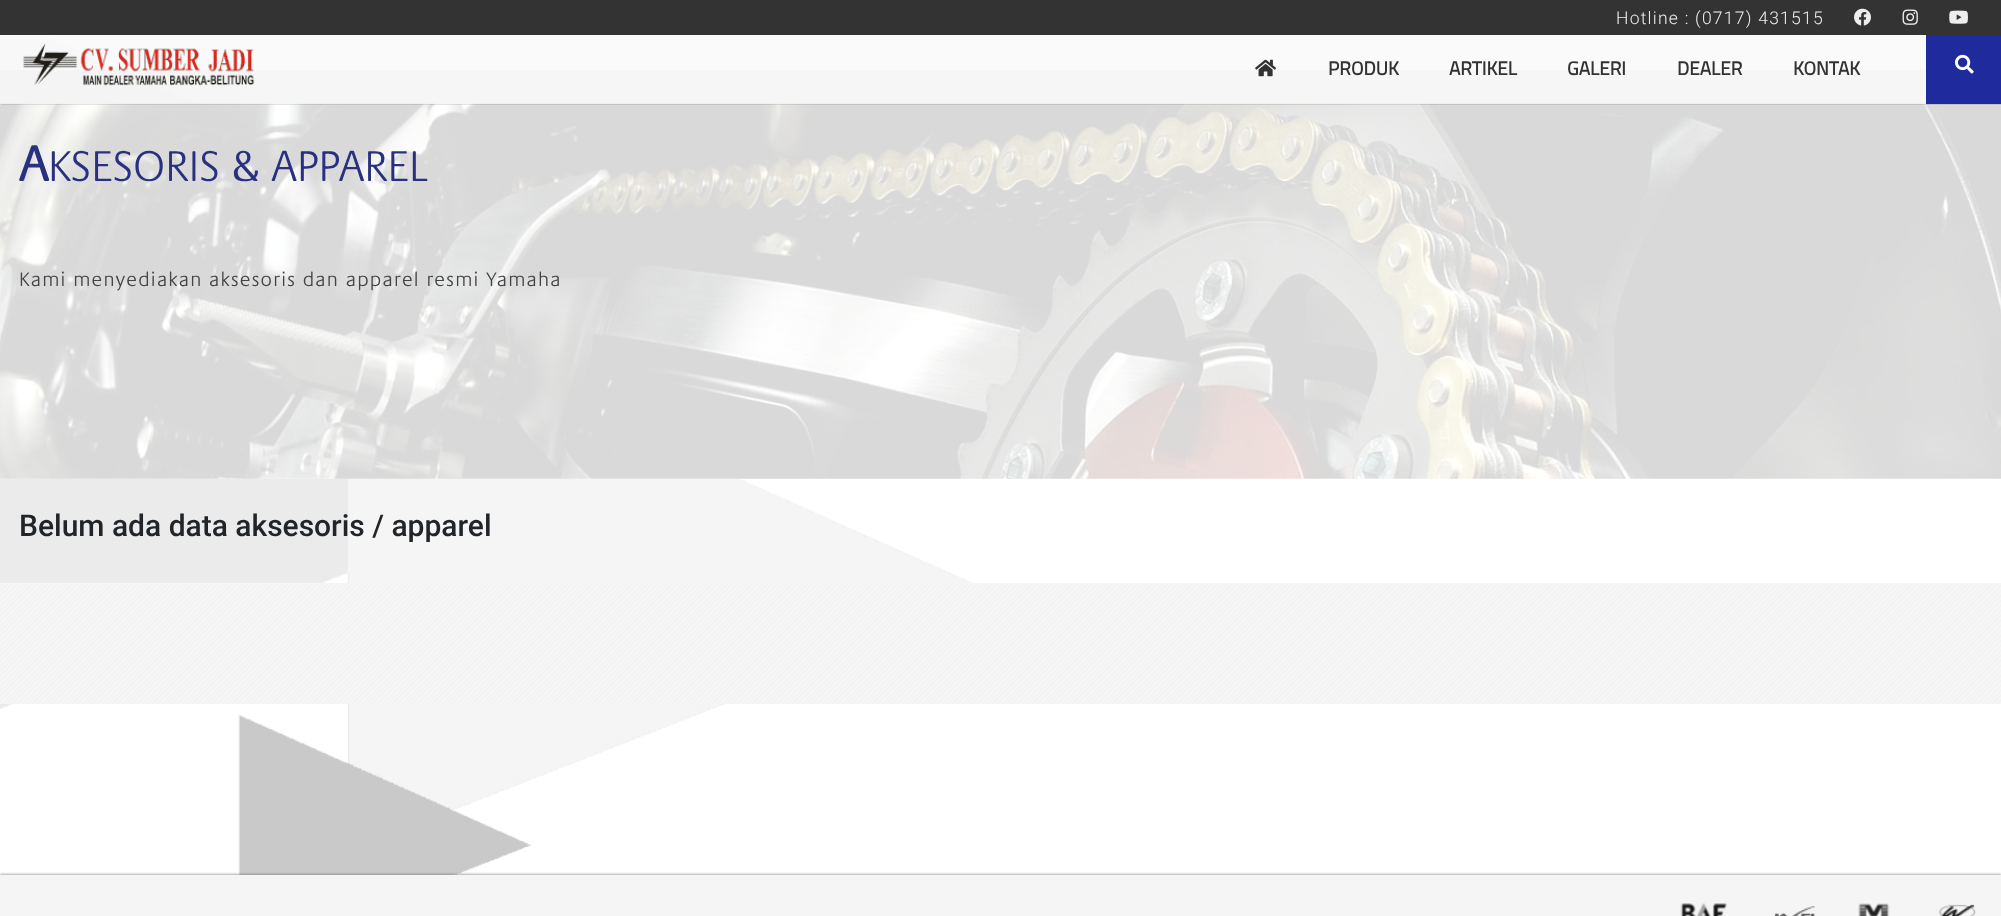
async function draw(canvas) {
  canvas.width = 2001
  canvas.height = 916
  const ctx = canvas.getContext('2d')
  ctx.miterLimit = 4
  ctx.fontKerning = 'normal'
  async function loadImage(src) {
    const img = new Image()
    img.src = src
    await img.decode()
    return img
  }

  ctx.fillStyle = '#fff'
  ctx.fillRect(0, 0, 2001, 916)
  ctx.fillStyle = '#333'
  ctx.fillRect(0, 0, 2001, 35)
  ctx.letterSpacing = '1.25px'
  ctx.font = '300 17.5px Roboto'
  ctx.fillStyle = '#eee'
  ctx.fillText('Hotline : (0717) 431515', 1616, 24)
  ctx.drawImage(await loadImage('image0.png'), 1854, 8, 17, 18)
  ctx.drawImage(await loadImage('image1.png'), 1902, 9, 16, 16)
  ctx.drawImage(await loadImage('image2.png'), 1949, 10, 19, 14)
  ctx.drawImage(await loadImage('image6.png'), 0, 35, 975, 840)
  ctx.drawImage(await loadImage('image7.png'), 0, 103, 2001, 376)
  ctx.fillStyle = '#ffffffd9'
  ctx.fillRect(0, 104, 2001, 375)
  ctx.fillStyle = '#0000001a'
  ctx.beginPath()
  ctx.moveTo(1, 104)
  ctx.lineTo(1, 105)
  ctx.lineTo(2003, 105)
  ctx.lineTo(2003, 36)
  ctx.lineTo(2001, 36)
  ctx.lineTo(2001, 104)
  ctx.closePath()
  ctx.fill()
  ctx.fillStyle = '#fafafae6'
  ctx.fillRect(0, 35, 1926, 35)
  ctx.fillStyle = '#f5f5f5e6'
  ctx.fillRect(0, 70, 1926, 34)
  ctx.drawImage(await loadImage('image3.png'), 23, 43, 232, 43)
  ctx.drawImage(await loadImage('image4.png'), 1255, 59, 22, 18)
  ctx.letterSpacing = '0px'
  ctx.font = 'bold 19px Titillium Web'
  ctx.fillStyle = '#333'
  ctx.fillText('PRODUK', 1328, 75)
  ctx.fillText('ARTIKEL', 1449, 75)
  ctx.fillText('GALERI', 1567, 75)
  ctx.fillText('DEALER', 1677, 75)
  ctx.fillText('KONTAK', 1793, 75)
  ctx.fillStyle = '#1f2a9d'
  ctx.fillRect(1926, 35, 75, 69)
  ctx.drawImage(await loadImage('image5.png'), 1955, 54, 19, 20)
  ctx.font = 'bold 50px "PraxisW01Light"'
  ctx.fillStyle = '#29307f'
  ctx.fillText('A', 19, 181)
  ctx.font = '300 43.75px "PraxisW01Light"'
  ctx.fillText('KSESORIS & APPAREL', 48, 181)
  ctx.letterSpacing = '1.25px'
  ctx.font = '300 20px "PraxisW01Light"'
  ctx.fillStyle = '#444'
  ctx.fillText('Kami menyediakan aksesoris dan apparel resmi Yamaha', 19, 286)
  ctx.letterSpacing = '0px'
  ctx.font = '500 30px Roboto'
  ctx.fillStyle = '#212529'
  ctx.fillText('Belum ada data aksesoris / apparel', 19, 536)
  ctx.drawImage(await loadImage('image8.png'), 0, 583, 2001, 121)
  ctx.fillStyle = '#5a5a5a80'
  ctx.filter = 'blur(1px)'
  ctx.beginPath()
  ctx.rect(0, 874, 2001, 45)
  ctx.fill()
  ctx.filter = 'none'
  ctx.fillStyle = '#f5f5f5'
  ctx.fillRect(0, 875, 2001, 41)
  ctx.drawImage(await loadImage('image9.png'), 1680, 903, 47, 13)
  ctx.drawImage(await loadImage('image10.png'), 1774, 905, 41, 11)
  ctx.drawImage(await loadImage('image11.png'), 1858, 903, 32, 13)
  ctx.drawImage(await loadImage('image12.png'), 1938, 904, 38, 12)
}

draw(document.querySelector('canvas'))
